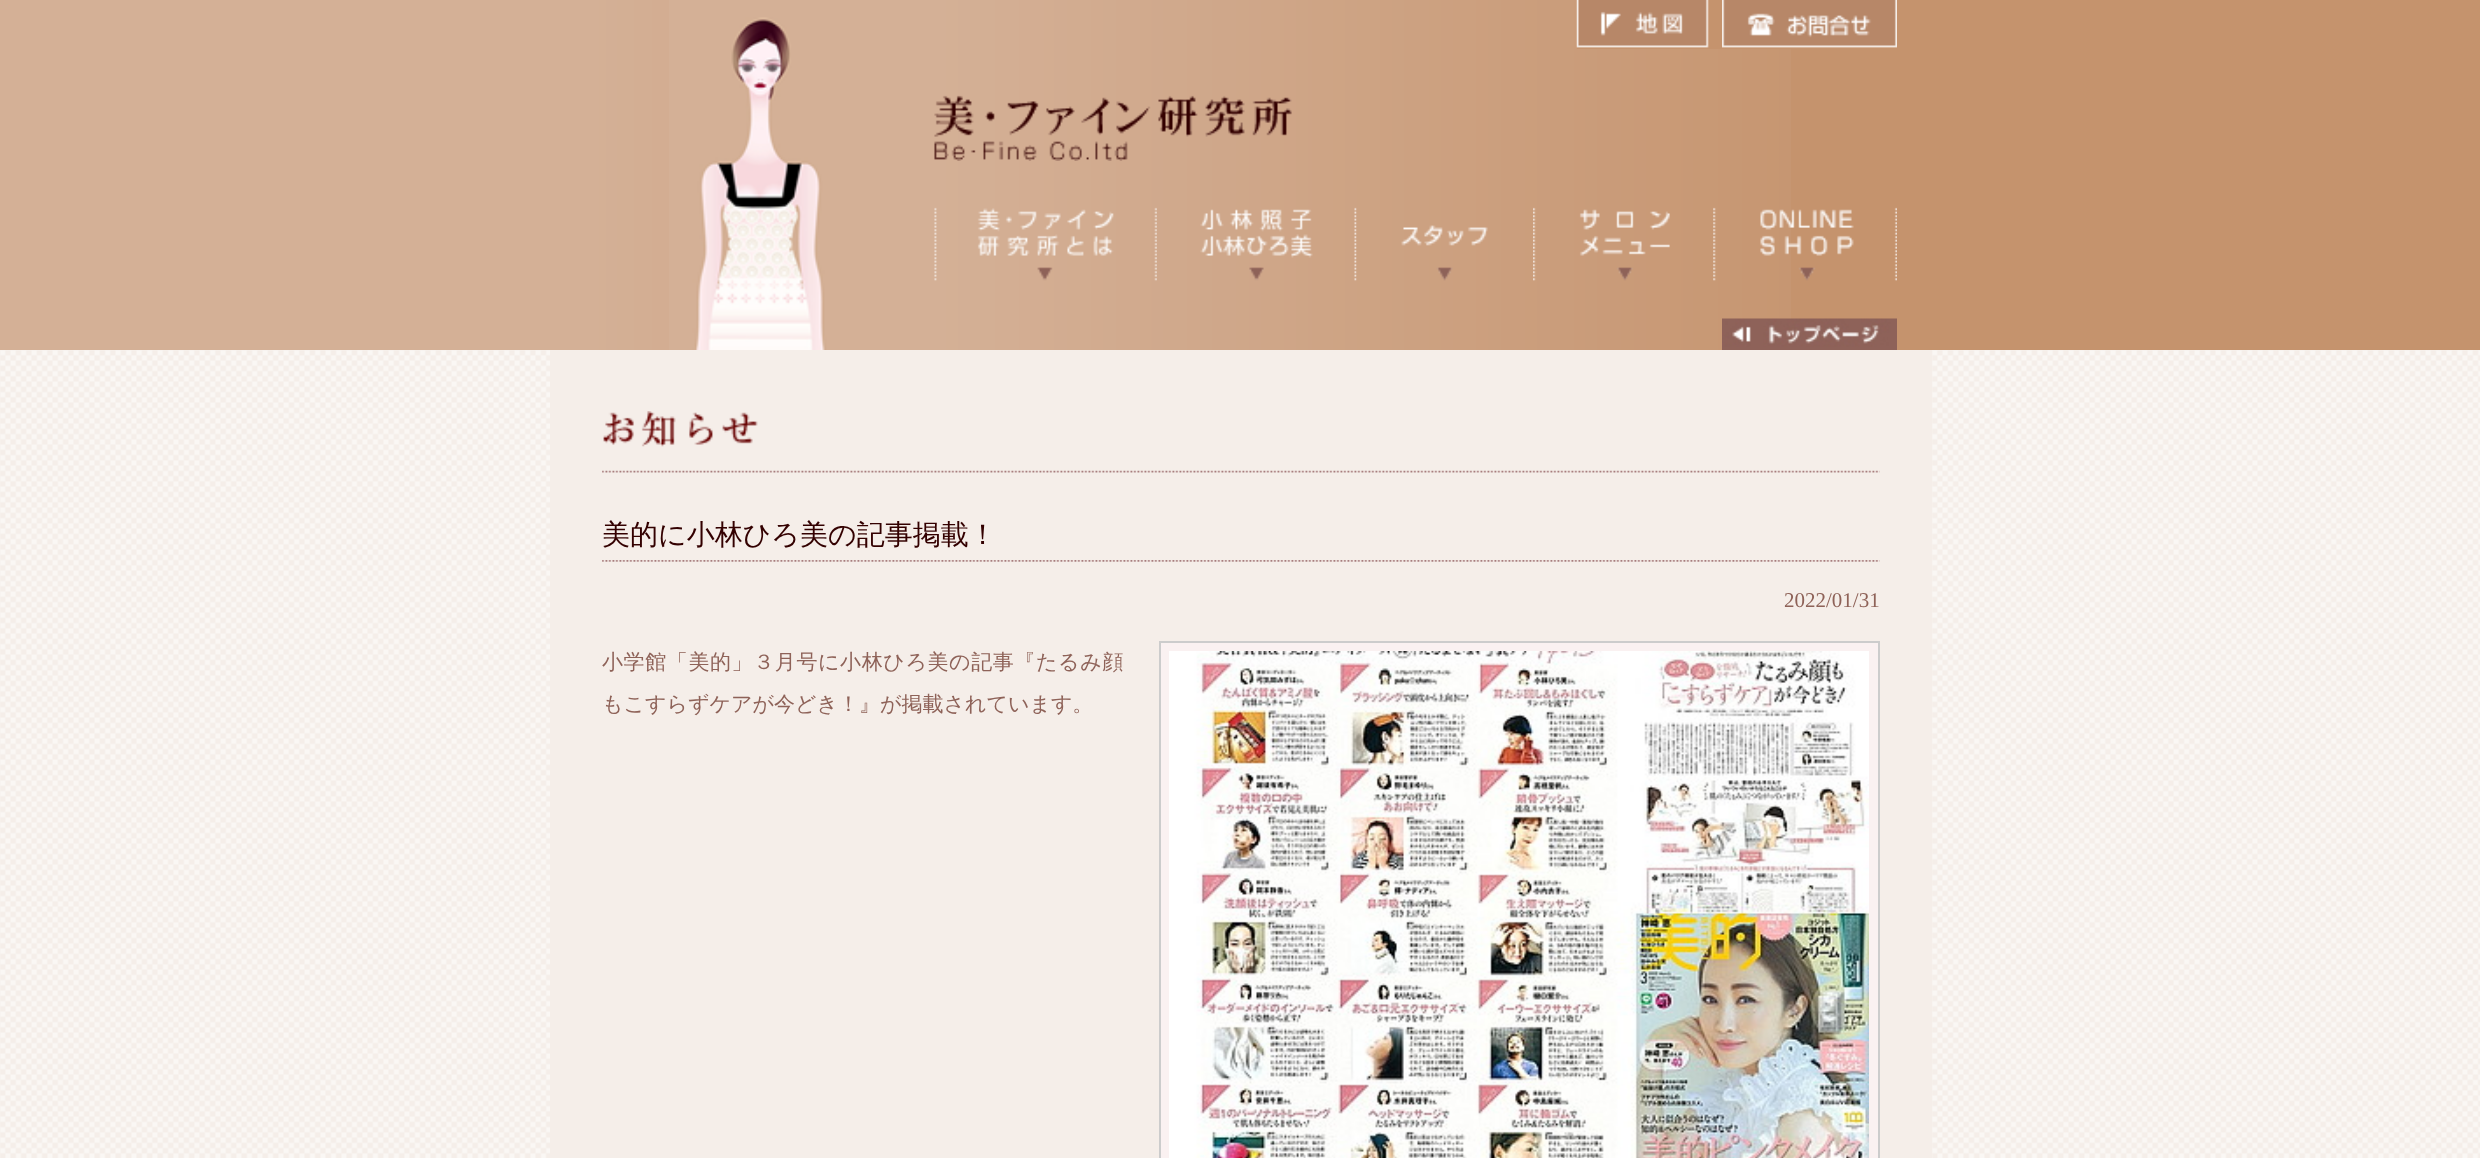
async function draw(canvas) {
  canvas.width = 2480
  canvas.height = 1158
  const ctx = canvas.getContext('2d')
  ctx.miterLimit = 4
  ctx.fontKerning = 'normal'
  async function loadImage(src) {
    const img = new Image()
    img.src = src
    await img.decode()
    return img
  }

  ctx.fillStyle = '#fff'
  ctx.fillRect(0, 0, 2480, 1158)
  ctx.drawImage(await loadImage('image0.png'), 0, 0, 2480, 350)
  ctx.drawImage(await loadImage('image1.png'), 669, 0, 1122, 350)
  ctx.drawImage(await loadImage('image2.png'), 1576, 0, 146, 49)
  ctx.drawImage(await loadImage('image3.png'), 1722, 0, 175, 49)
  ctx.drawImage(await loadImage('image4.png'), 934, 95, 358, 66)
  ctx.drawImage(await loadImage('image5.png'), 934, 207, 223, 74)
  ctx.drawImage(await loadImage('image6.png'), 1200, 207, 157, 74)
  ctx.drawImage(await loadImage('image7.png'), 1401, 225, 87, 56)
  ctx.drawImage(await loadImage('image8.png'), 1533, 207, 137, 74)
  ctx.drawImage(await loadImage('image9.png'), 1713, 207, 184, 74)
  ctx.drawImage(await loadImage('image10.png'), 1722, 318, 175, 32)
  ctx.drawImage(await loadImage('image11.png'), 0, 350, 2480, 808)
  ctx.fillStyle = '#f5eee9'
  ctx.fillRect(550, 350, 1382, 808)
  ctx.drawImage(await loadImage('image12.png'), 602, 470, 1278, 3)
  ctx.drawImage(await loadImage('image13.png'), 603, 411, 155, 36)
  ctx.drawImage(await loadImage('image14.png'), 602, 560, 1278, 2)
  ctx.font = '500 28px WenQuanYi Zen Hei'
  ctx.fillStyle = '#300'
  ctx.fillText('美的に小林ひろ美の記事掲載！', 602, 544)
  ctx.font = '21px Liberation Serif'
  ctx.fillStyle = '#8e6258'
  ctx.fillText('2022/01/31', 1784, 607)
  ctx.letterSpacing = '0.6px'
  ctx.font = '500 21px WenQuanYi Zen Hei'
  ctx.fillText('小学館「美的」３月号に小林ひろ美の記事『たるみ顔', 602, 669)
  ctx.letterSpacing = '0px'
  ctx.fillText('もこすらずケアが今どき！』が掲載されています。', 602, 711)
  ctx.fillStyle = '#faf1f1'
  ctx.beginPath()
  ctx.rect(1160, 642, 719, 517)
  ctx.fill()
  ctx.strokeStyle = '#ccc'
  ctx.lineWidth = 2
  ctx.stroke()
  ctx.drawImage(await loadImage('image15.png'), 1169, 651, 700, 507)
}

draw(document.querySelector('canvas'))
